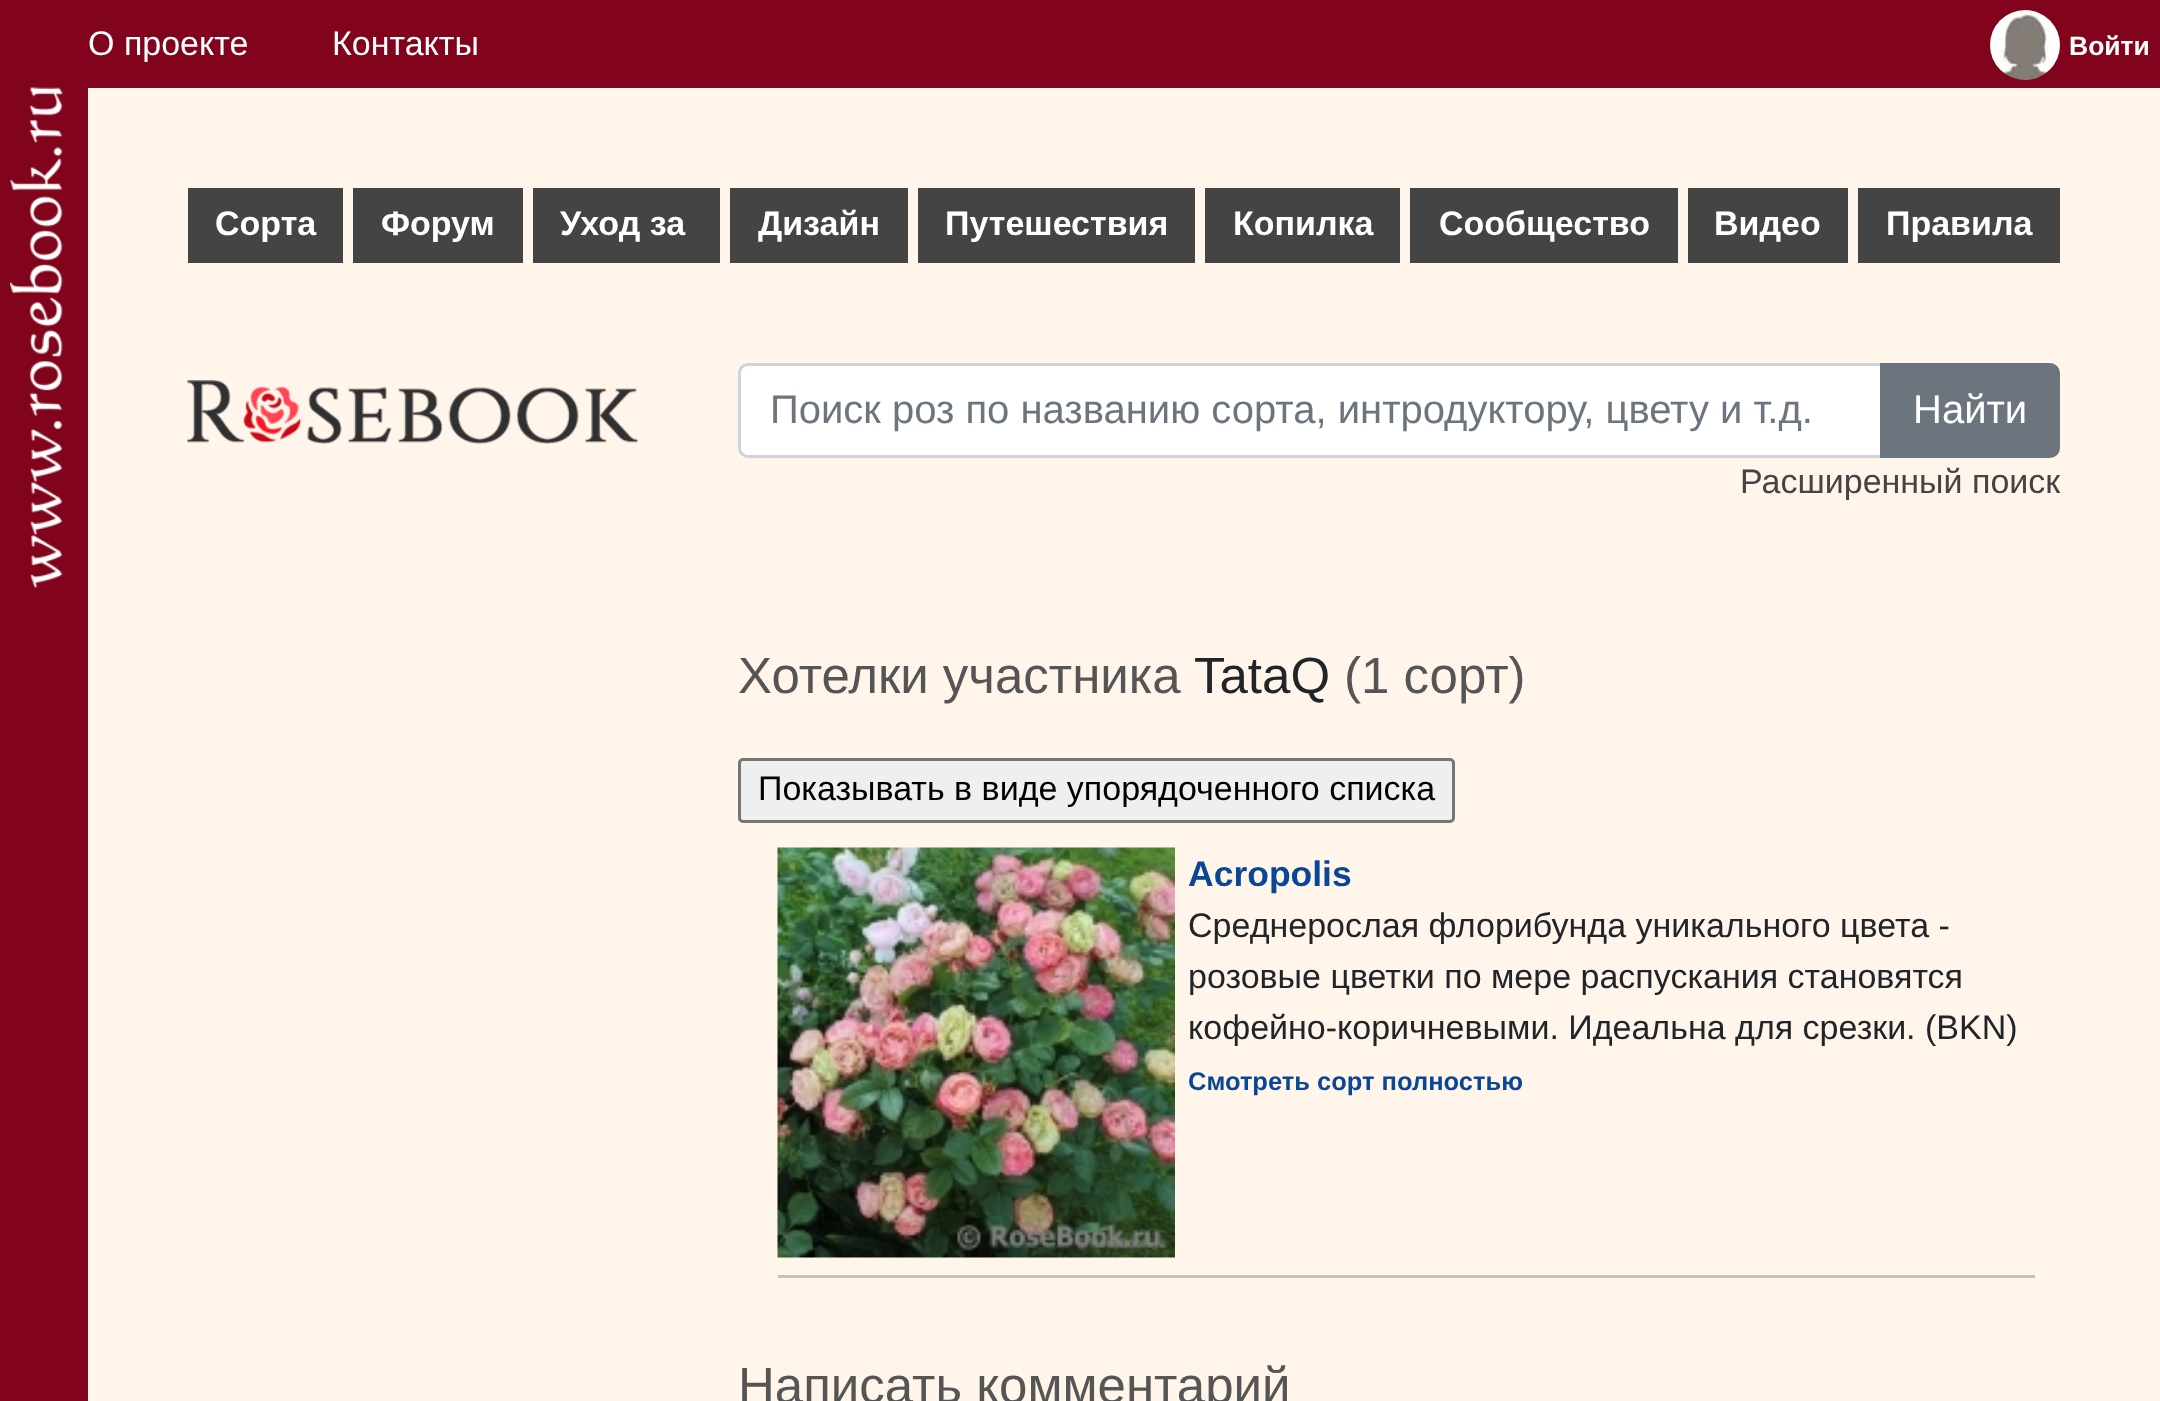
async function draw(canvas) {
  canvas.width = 2160
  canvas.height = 1401
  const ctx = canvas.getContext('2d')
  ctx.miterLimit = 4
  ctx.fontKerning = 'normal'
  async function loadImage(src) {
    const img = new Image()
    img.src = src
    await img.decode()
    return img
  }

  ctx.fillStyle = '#fff5eb'
  ctx.fillRect(0, 0, 2160, 1401)
  ctx.fillStyle = '#81031c'
  ctx.fillRect(0, 0, 88, 1401)
  ctx.drawImage(await loadImage('image0.png'), 10, 87, 53, 501)
  ctx.fillRect(88, 0, 2072, 88)
  ctx.font = '34px Liberation Sans'
  ctx.fillStyle = '#fff'
  ctx.fillText('О проекте', 88, 55)
  ctx.fillText('Контакты', 332, 55)
  ctx.drawImage(await loadImage('image1.png'), 1990, 10, 70, 70)
  ctx.font = 'bold 26.5px Liberation Sans'
  ctx.fillText('Войти', 2069, 55)
  ctx.fillStyle = '#444'
  ctx.fillRect(188, 188, 155, 75)
  ctx.font = 'bold 34px Liberation Sans'
  ctx.fillStyle = '#fff'
  ctx.fillText('Сорта', 215, 235)
  ctx.fillStyle = '#444'
  ctx.fillRect(353, 188, 170, 75)
  ctx.fillStyle = '#fff'
  ctx.fillText('Форум', 381, 235)
  ctx.fillStyle = '#444'
  ctx.fillRect(533, 188, 187, 75)
  ctx.fillStyle = '#fff'
  ctx.fillText('Уход за', 560, 235)
  ctx.fillStyle = '#444'
  ctx.fillRect(730, 188, 178, 75)
  ctx.fillStyle = '#fff'
  ctx.fillText('Дизайн', 758, 235)
  ctx.fillStyle = '#444'
  ctx.fillRect(918, 188, 277, 75)
  ctx.fillStyle = '#fff'
  ctx.fillText('Путешествия', 945, 235)
  ctx.fillStyle = '#444'
  ctx.fillRect(1205, 188, 195, 75)
  ctx.fillStyle = '#fff'
  ctx.fillText('Копилка', 1233, 235)
  ctx.fillStyle = '#444'
  ctx.fillRect(1410, 188, 268, 75)
  ctx.fillStyle = '#fff'
  ctx.fillText('Сообщество', 1439, 235)
  ctx.fillStyle = '#444'
  ctx.fillRect(1688, 188, 160, 75)
  ctx.fillStyle = '#fff'
  ctx.fillText('Видео', 1714, 235)
  ctx.fillStyle = '#444'
  ctx.fillRect(1858, 188, 202, 75)
  ctx.fillStyle = '#fff'
  ctx.fillText('Правила', 1886, 235)
  ctx.drawImage(await loadImage('image2.png'), 187, 380, 451, 64)
  ctx.beginPath()
  ctx.roundRect(739.5, 364.5, 1142, 92, [8.5, 0, 0, 8.5])
  ctx.fill()
  ctx.strokeStyle = '#ced4da'
  ctx.lineWidth = 3
  ctx.stroke()
  ctx.font = '40px Liberation Sans'
  ctx.fillStyle = '#6c757d'
  ctx.fillText('Поиск роз по названию сорта, интродуктору, цвету и т.д.', 770, 423)
  ctx.beginPath()
  ctx.roundRect(1880, 363, 180, 95, [0, 10, 10, 0])
  ctx.fill()
  ctx.fillStyle = '#fff'
  ctx.fillText('Найти', 1913, 423)
  ctx.font = '34px Liberation Sans'
  ctx.fillStyle = '#444'
  ctx.fillText('Расширенный поиск', 1740, 493)
  ctx.font = '51px Liberation Sans'
  ctx.fillStyle = '#555'
  ctx.fillText('Хотелки участника', 738, 693)
  ctx.fillStyle = '#212529'
  ctx.fillText('TataQ', 1194, 693)
  ctx.fillStyle = '#555'
  ctx.fillText('(1 сорт)', 1344, 693)
  ctx.fillStyle = '#efefef'
  ctx.beginPath()
  ctx.roundRect(739.5, 759.5, 714, 62, 3.5)
  ctx.fill()
  ctx.strokeStyle = '#767676'
  ctx.stroke()
  ctx.font = '34px Liberation Sans'
  ctx.fillStyle = '#000'
  ctx.fillText('Показывать в виде упорядоченного списка', 758, 800)
  ctx.drawImage(await loadImage('image3.png'), 777, 847, 398, 411)
  ctx.font = 'bold 35.5px Liberation Sans'
  ctx.fillStyle = '#094794'
  ctx.fillText('Acropolis', 1188, 886)
  ctx.font = '34px Liberation Sans'
  ctx.fillStyle = '#212529'
  ctx.fillText('Среднерослая флорибунда уникального цвета -', 1188, 937)
  ctx.fillText('розовые цветки по мере распускания становятся', 1188, 988)
  ctx.fillText('кофейно-коричневыми. Идеальна для срезки. (BKN)', 1188, 1039)
  ctx.font = 'bold 25.5px Liberation Sans'
  ctx.fillStyle = '#094794'
  ctx.fillText('Смотреть сорт полностью', 1188, 1090)
  ctx.fillStyle = '#c8c1bb'
  ctx.fillRect(778, 1275, 1257, 3)
  ctx.font = '51px Liberation Sans'
  ctx.fillStyle = '#555'
  ctx.fillText('Написать комментарий', 738, 1403)
}

draw(document.querySelector('canvas'))
